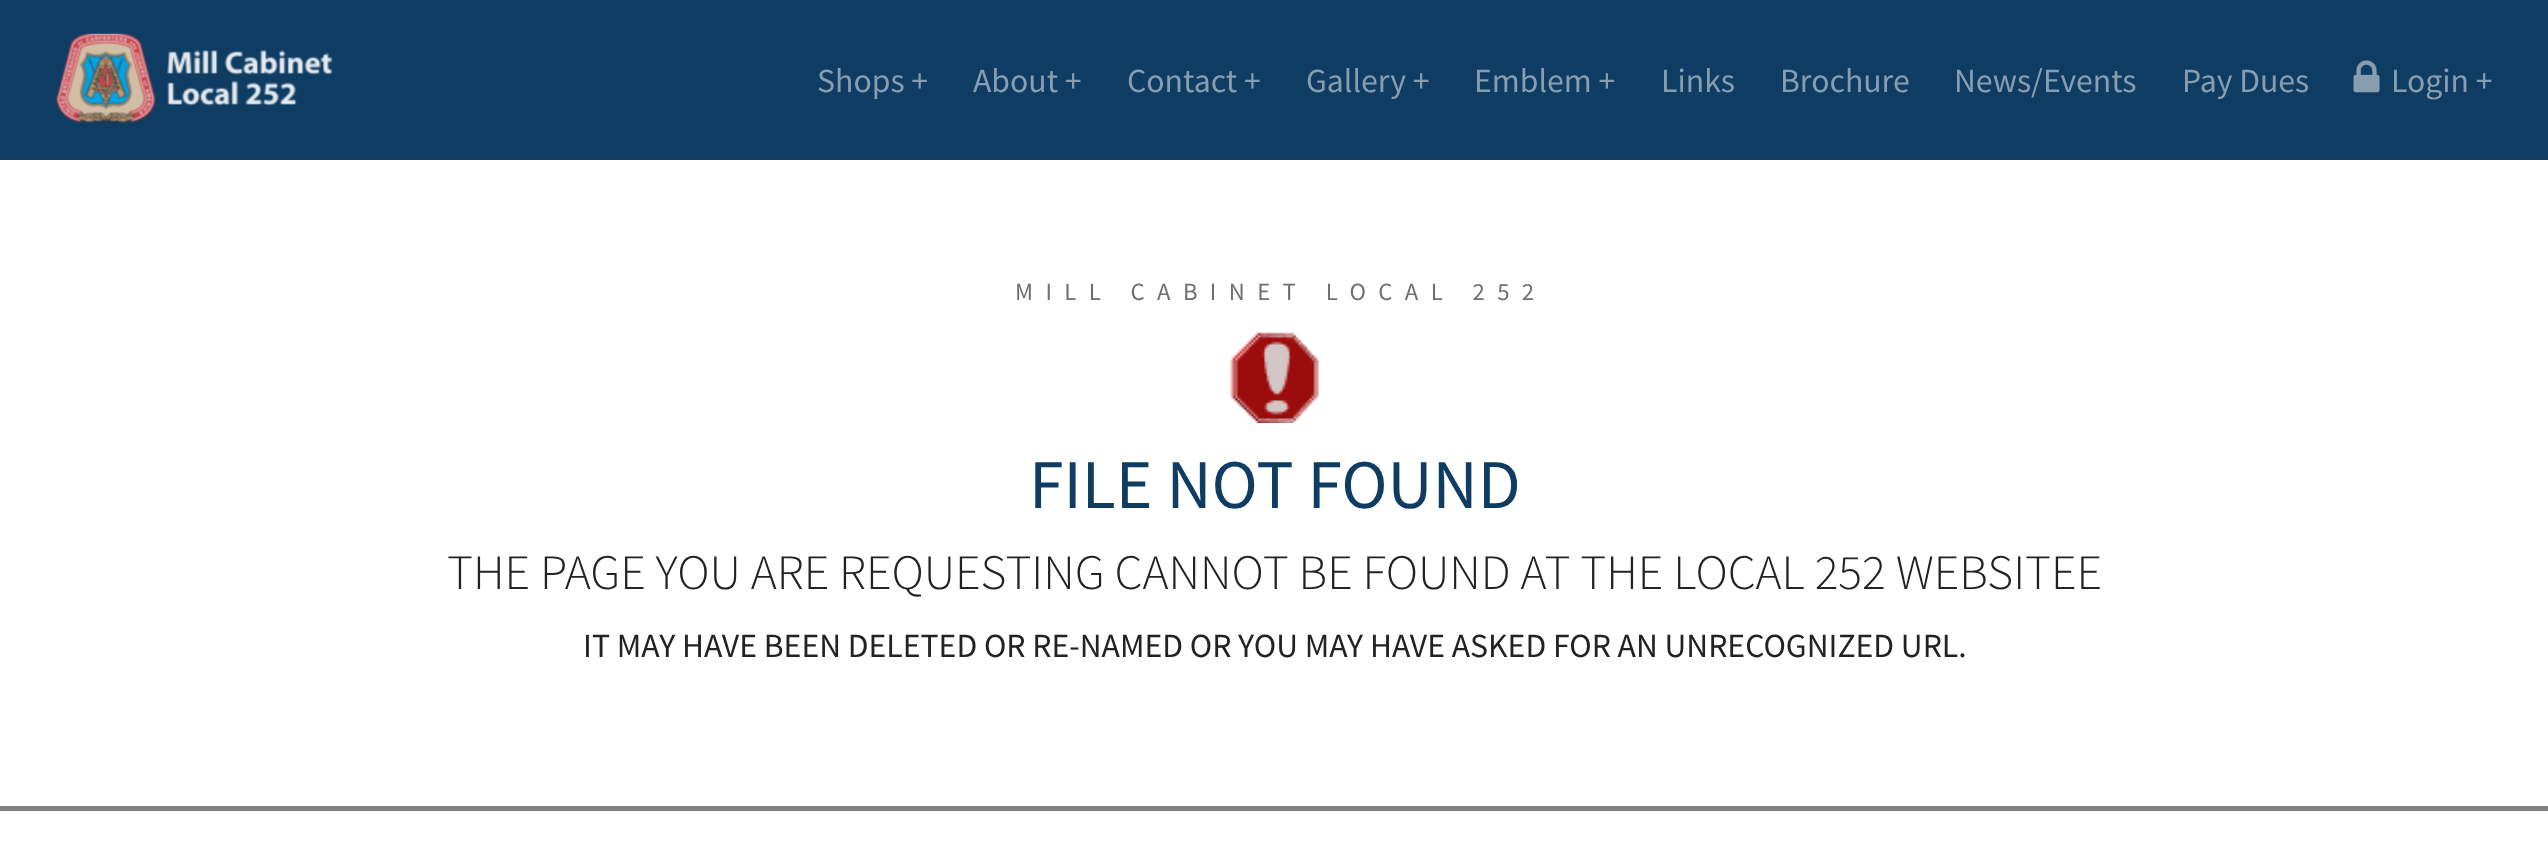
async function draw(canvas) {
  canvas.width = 2548
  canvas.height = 866
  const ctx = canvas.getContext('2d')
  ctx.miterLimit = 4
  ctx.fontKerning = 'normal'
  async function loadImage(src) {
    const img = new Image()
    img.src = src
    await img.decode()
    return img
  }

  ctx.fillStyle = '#fff'
  ctx.fillRect(0, 0, 2548, 866)
  ctx.fillStyle = '#0f3c63'
  ctx.fillRect(0, 0, 2548, 160)
  ctx.drawImage(await loadImage('image0.png'), 56, 33, 277, 91)
  ctx.font = '33.75px Source Sans Pro'
  ctx.fillStyle = '#879eb1'
  ctx.fillText('Shops +', 817, 92)
  ctx.fillText('About +', 973, 92)
  ctx.fillText('Contact +', 1127, 92)
  ctx.fillText('Gallery +', 1306, 92)
  ctx.fillText('Emblem +', 1474, 92)
  ctx.fillText('Links', 1661, 92)
  ctx.fillText('Brochure', 1780, 92)
  ctx.fillText('News/Events', 1954, 92)
  ctx.fillText('Pay Dues', 2182, 92)
  ctx.drawImage(await loadImage('image1.png'), 2353, 60, 27, 33)
  ctx.fillText('Login +', 2391, 92)
  ctx.letterSpacing = '12.4px'
  ctx.font = '24.75px Source Sans Pro'
  ctx.fillStyle = '#6f6f6f'
  ctx.fillText('MILL CABINET LOCAL 252', 1015, 300)
  ctx.drawImage(await loadImage('image2.png'), 1230, 332, 90, 91)
  ctx.letterSpacing = '0px'
  ctx.font = '69.75px Source Sans Pro'
  ctx.fillStyle = '#0f3c63'
  ctx.fillText('FILE NOT FOUND', 1029, 508)
  ctx.font = '300 49.5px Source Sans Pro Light'
  ctx.fillStyle = '#222'
  ctx.fillText('THE PAGE YOU ARE REQUESTING CANNOT BE FOUND AT THE LOCAL 252 WEBSITEE', 447, 589)
  ctx.font = '33.75px Source Sans Pro'
  ctx.fillText('IT MAY HAVE BEEN DELETED OR RE-NAMED OR YOU MAY HAVE ASKED FOR AN UNRECOGNIZED URL.', 583, 657)
  ctx.fillStyle = '#808080'
  ctx.fillRect(0, 806, 2548, 5)
}

draw(document.querySelector('canvas'))
